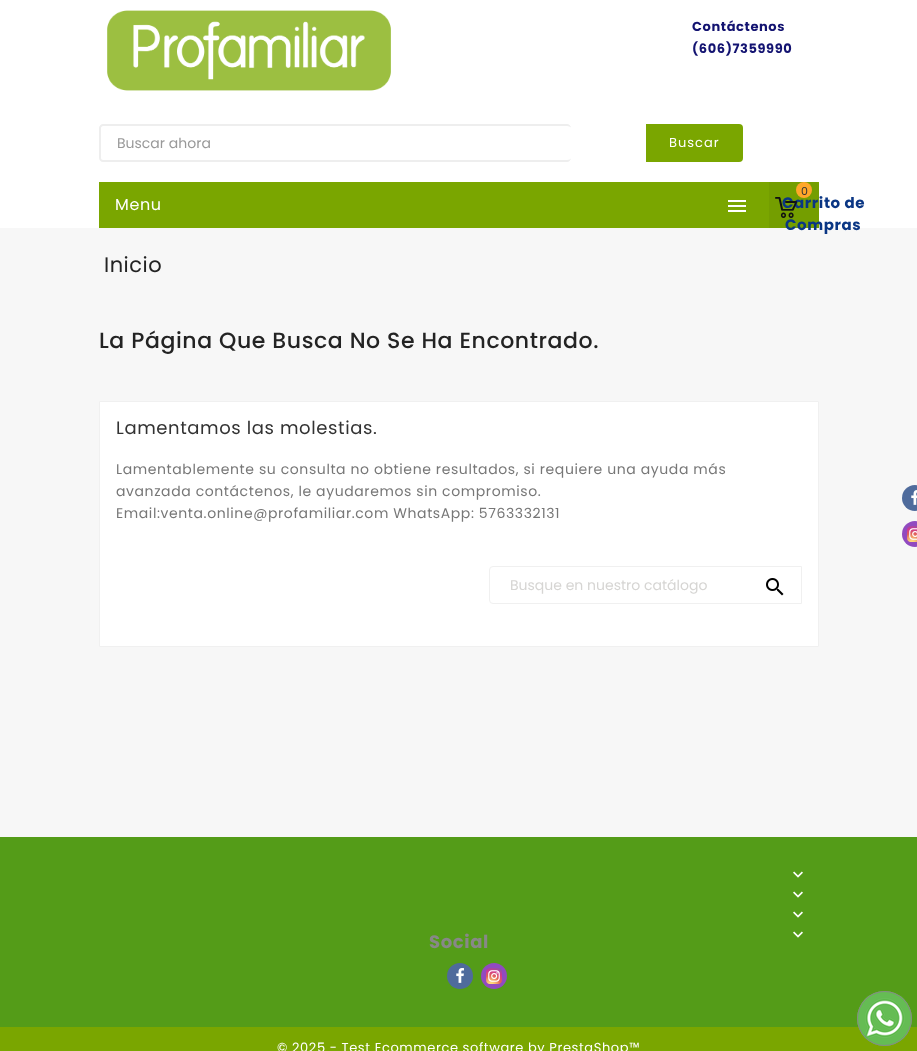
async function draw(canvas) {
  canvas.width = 917
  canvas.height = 1051
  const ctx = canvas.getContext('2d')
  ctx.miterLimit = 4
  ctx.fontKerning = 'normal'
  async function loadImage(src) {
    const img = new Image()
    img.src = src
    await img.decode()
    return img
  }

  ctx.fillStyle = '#f7f7f7'
  ctx.fillRect(0, 0, 917, 1051)
  ctx.fillStyle = '#fff'
  ctx.fillRect(0, 0, 917, 228)
  ctx.drawImage(await loadImage('image0.png'), 107, 10, 284, 81)
  ctx.letterSpacing = '0.6px'
  ctx.font = 'bold 13px Poppins'
  ctx.fillStyle = '#131371'
  ctx.fillText('Contáctenos', 692, 31)
  ctx.fillText('(606)7359990', 692, 53)
  ctx.fillStyle = '#eee'
  ctx.beginPath()
  ctx.moveTo(103, 124)
  ctx.lineTo(567, 124)
  ctx.bezierCurveTo(569, 124, 571, 126, 571, 128)
  ctx.lineTo(571, 158)
  ctx.bezierCurveTo(571, 160, 569, 162, 567, 162)
  ctx.lineTo(103, 162)
  ctx.bezierCurveTo(101, 162, 99, 160, 99, 158)
  ctx.lineTo(99, 128)
  ctx.bezierCurveTo(99, 126, 101, 124, 103, 124)
  ctx.closePath()
  ctx.moveTo(103, 126)
  ctx.lineTo(567, 126)
  ctx.bezierCurveTo(569, 126, 571, 127, 571, 128)
  ctx.lineTo(571, 158)
  ctx.bezierCurveTo(571, 159, 569, 160, 567, 160)
  ctx.lineTo(103, 160)
  ctx.bezierCurveTo(102, 160, 101, 159, 101, 158)
  ctx.lineTo(101, 128)
  ctx.bezierCurveTo(101, 127, 102, 126, 103, 126)
  ctx.closePath()
  ctx.fill('evenodd')
  ctx.letterSpacing = '0px'
  ctx.font = '14px Poppins'
  ctx.fillStyle = '#999'
  ctx.fillText('Buscar ahora', 117, 148)
  ctx.fillStyle = '#7aa600'
  ctx.beginPath()
  ctx.roundRect(646, 124, 97, 38, [0, 4, 4, 0])
  ctx.fill()
  ctx.letterSpacing = '1px'
  ctx.font = '13px Poppins'
  ctx.fillStyle = '#fff'
  ctx.fillText('Buscar', 669, 147)
  ctx.fillStyle = '#7aa600'
  ctx.fillRect(99, 182, 720, 46)
  ctx.fillStyle = '#749e00'
  ctx.beginPath()
  ctx.roundRect(769, 182, 50, 46, [0, 4, 0, 0])
  ctx.fill()
  ctx.letterSpacing = '0.6px'
  ctx.font = 'bold 15px Poppins'
  ctx.fillStyle = '#0a3684'
  ctx.fillText('Carrito de', 782, 208)
  ctx.drawImage(await loadImage('image1.png'), 775, 197, 22, 21)
  ctx.fillStyle = '#ffa729'
  ctx.beginPath()
  ctx.arc(804, 190, 8, 0, 2 * Math.PI)
  ctx.fill()
  ctx.font = '11px Poppins'
  ctx.fillStyle = '#333'
  ctx.fillText('0', 801, 195)
  ctx.font = 'bold 15px Poppins'
  ctx.fillStyle = '#0a3684'
  ctx.fillText('Compras', 785, 230)
  ctx.font = '16px Poppins'
  ctx.fillStyle = '#fff'
  ctx.fillText('Menu', 115, 210)
  ctx.drawImage(await loadImage('image2.png'), 728, 200, 18, 12)
  ctx.letterSpacing = '0.5px'
  ctx.font = '21px Poppins'
  ctx.fillStyle = '#232323'
  ctx.fillText('Inicio', 104, 272)
  ctx.letterSpacing = '0.6px'
  ctx.font = '500 22px Poppins'
  ctx.fillText('La Página Que Busca No Se Ha Encontrado.', 99, 348)
  ctx.fillStyle = '#fff'
  ctx.beginPath()
  ctx.rect(99.5, 401.5, 719, 245)
  ctx.fill()
  ctx.strokeStyle = '#f0f0f0'
  ctx.stroke()
  ctx.font = '18px Poppins'
  ctx.fillStyle = '#333'
  ctx.fillText('Lamentamos las molestias.', 116, 434)
  ctx.font = '14px Poppins'
  ctx.fillStyle = '#777'
  ctx.fillText('Lamentablemente su consulta no obtiene resultados, si requiere una ayuda más', 116, 474)
  ctx.fillText('avanzada contáctenos, le ayudaremos sin compromiso.', 116, 496)
  ctx.fillText('Email:venta.online@profamiliar.com WhatsApp: 5763332131', 116, 518)
  ctx.beginPath()
  ctx.roundRect(489.5, 566.5, 312, 37, [3.5, 0, 0, 3.5])
  ctx.stroke()
  ctx.letterSpacing = '0px'
  ctx.fillStyle = '#d6d5d3'
  ctx.fillText('Busque en nuestro catálogo', 510, 590)
  ctx.drawImage(await loadImage('image3.png'), 766, 578, 18, 18)
  ctx.fillStyle = '#549c18'
  ctx.fillRect(0, 837, 917, 190)
  ctx.letterSpacing = '0.6px'
  ctx.font = 'bold 18px Poppins'
  ctx.fillStyle = '#888'
  ctx.fillText('Social', 429, 948)
  ctx.fillStyle = '#4f6b9c'
  ctx.beginPath()
  ctx.arc(460, 976, 13, 0, 2 * Math.PI)
  ctx.fill()
  ctx.drawImage(await loadImage('image4.png'), 456, 968, 8, 15)
  ctx.fillStyle = '#914ac0'
  ctx.beginPath()
  ctx.arc(494, 976, 13, 0, 2 * Math.PI)
  ctx.fill()
  ctx.drawImage(await loadImage('image5.png'), 486, 968, 16, 16)
  ctx.drawImage(await loadImage('image6.png'), 793, 871, 10, 7)
  ctx.drawImage(await loadImage('image6.png'), 793, 891, 10, 7)
  ctx.drawImage(await loadImage('image6.png'), 793, 911, 10, 7)
  ctx.drawImage(await loadImage('image6.png'), 793, 931, 10, 7)
  ctx.fillStyle = '#7aa600'
  ctx.fillRect(0, 1027, 917, 24)
  ctx.fillStyle = '#65bc54'
  ctx.beginPath()
  ctx.arc(884.5, 1018.5, 27.5, 0, 2 * Math.PI)
  ctx.fill()
  ctx.drawImage(await loadImage('image7.png'), 862, 996, 45, 45)
  ctx.beginPath()
  ctx.arc(884.5, 1018.5, 27, 0, 2 * Math.PI)
  ctx.strokeStyle = '#888'
  ctx.stroke()
  ctx.font = '13px Poppins'
  ctx.fillStyle = '#fff'
  ctx.fillText('© 2025 - Test Ecommerce software by PrestaShop™', 277, 1052)
  ctx.fillStyle = '#4f6b9c'
  ctx.beginPath()
  ctx.arc(915, 498, 13, 0, 2 * Math.PI)
  ctx.fill()
  ctx.drawImage(await loadImage('image8.png'), 911, 490, 6, 15)
  ctx.fillStyle = '#914ac0'
  ctx.beginPath()
  ctx.arc(915, 534, 13, 0, 2 * Math.PI)
  ctx.fill()
  ctx.drawImage(await loadImage('image9.png'), 907, 526, 10, 16)
}

draw(document.querySelector('canvas'))
